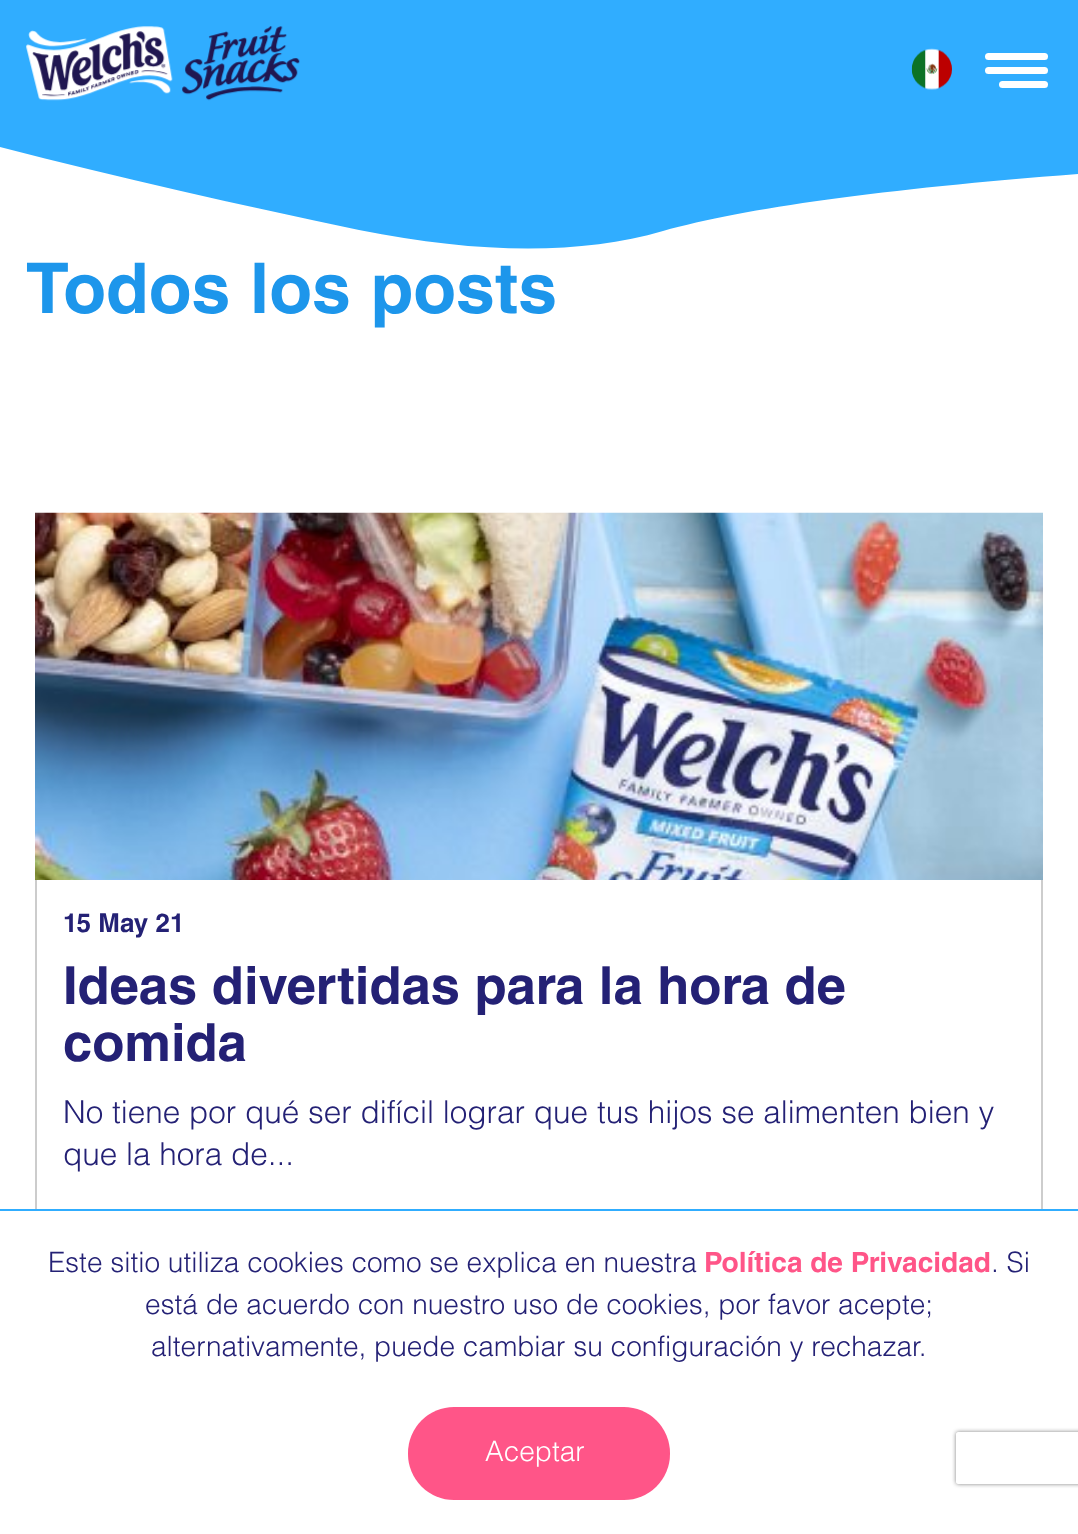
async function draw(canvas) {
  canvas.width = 1078
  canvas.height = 1534
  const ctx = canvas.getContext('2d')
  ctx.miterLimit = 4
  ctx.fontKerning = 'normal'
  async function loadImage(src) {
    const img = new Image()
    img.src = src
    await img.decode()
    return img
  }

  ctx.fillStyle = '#fff'
  ctx.fillRect(0, 0, 1078, 1534)
  ctx.fillStyle = '#30adff'
  ctx.beginPath()
  ctx.moveTo(0, -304)
  ctx.lineTo(0, 147)
  ctx.bezierCurveTo(120, 178, 240, 205, 359, 230)
  ctx.bezierCurveTo(479, 254, 580, 255, 663, 231)
  ctx.bezierCurveTo(745, 208, 883, 189, 1078, 174)
  ctx.lineTo(1078, -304)
  ctx.closePath()
  ctx.fill()
  ctx.drawImage(await loadImage('image0.png'), 26, 26, 274, 75)
  ctx.drawImage(await loadImage('image1.png'), 911, 48, 41, 42)
  ctx.fillStyle = '#fff'
  ctx.beginPath()
  ctx.roundRect(985, 67, 63, 7, 3.5)
  ctx.fill()
  ctx.beginPath()
  ctx.roundRect(985, 53, 63, 7, 3.5)
  ctx.fill()
  ctx.beginPath()
  ctx.roundRect(999, 81, 49, 7, 3.5)
  ctx.fill()
  ctx.font = 'bold 70px Helvetica'
  ctx.fillStyle = '#1d96eb'
  ctx.fillText('Todos los posts', 26, 313)
  ctx.drawImage(await loadImage('image2.png'), 35, 512, 1008, 368)
  ctx.fillStyle = '#cdcdcd'
  ctx.beginPath()
  ctx.moveTo(1043, 880)
  ctx.lineTo(1043, 1246)
  ctx.lineTo(1041, 1244)
  ctx.lineTo(1041, 880)
  ctx.closePath()
  ctx.fill()
  ctx.fillStyle = '#9a9a9a80'
  ctx.beginPath()
  ctx.moveTo(35, 1246)
  ctx.lineTo(35, 880)
  ctx.lineTo(37, 880)
  ctx.lineTo(37, 1244)
  ctx.closePath()
  ctx.fill()
  ctx.font = 'bold 26px Helvetica'
  ctx.fillStyle = '#242175'
  ctx.fillText('15 May 21', 63, 932)
  ctx.font = 'bold 52.5px Helvetica'
  ctx.fillText('Ideas divertidas para la hora de', 63, 1004)
  ctx.fillText('comida', 63, 1061)
  ctx.font = '300 31.5px Helvetica'
  ctx.fillText('No tiene por qué ser difícil lograr que tus hijos se alimenten bien y', 63, 1123)
  ctx.fillText('que la hora de...', 63, 1165)
  ctx.fillStyle = '#fff'
  ctx.fillRect(35, 1211, 1008, 35)
  ctx.fillStyle = '#30adff'
  ctx.fillRect(0, 1209, 1078, 2)
  ctx.font = '300 28px Helvetica'
  ctx.fillStyle = '#242175'
  ctx.fillText('Este sitio utiliza cookies como se explica en nuestra', 48, 1272)
  ctx.font = 'bold 28px Helvetica'
  ctx.fillStyle = '#f58'
  ctx.fillText('Política de Privacidad', 704, 1272)
  ctx.font = '300 28px Helvetica'
  ctx.fillStyle = '#242175'
  ctx.fillText('. Si', 991, 1272)
  ctx.fillText('está de acuerdo con nuestro uso de cookies, por favor acepte;', 145, 1314)
  ctx.fillText('alternativamente, puede cambiar su configuración y rechazar.', 151, 1356)
  ctx.fillStyle = '#f58'
  ctx.beginPath()
  ctx.roundRect(408, 1407, 262, 93, 46)
  ctx.fill()
  ctx.fillStyle = '#fff'
  ctx.fillText('Aceptar', 485, 1461)
  ctx.save()
  ctx.beginPath()
  ctx.moveTo(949, 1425)
  ctx.lineTo(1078, 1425)
  ctx.lineTo(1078, 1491)
  ctx.lineTo(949, 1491)
  ctx.closePath()
  ctx.moveTo(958, 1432)
  ctx.lineTo(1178, 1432)
  ctx.bezierCurveTo(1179, 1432, 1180, 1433, 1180, 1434)
  ctx.lineTo(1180, 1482)
  ctx.bezierCurveTo(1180, 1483, 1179, 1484, 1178, 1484)
  ctx.lineTo(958, 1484)
  ctx.bezierCurveTo(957, 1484, 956, 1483, 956, 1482)
  ctx.lineTo(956, 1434)
  ctx.bezierCurveTo(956, 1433, 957, 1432, 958, 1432)
  ctx.closePath()
  ctx.clip('evenodd')
  ctx.fillStyle = '#808080'
  ctx.filter = 'blur(2px)'
  ctx.beginPath()
  ctx.roundRect(956, 1432, 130, 52, 2)
  ctx.fill()
  ctx.filter = 'none'
  ctx.restore()
}

draw(document.querySelector('canvas'))
